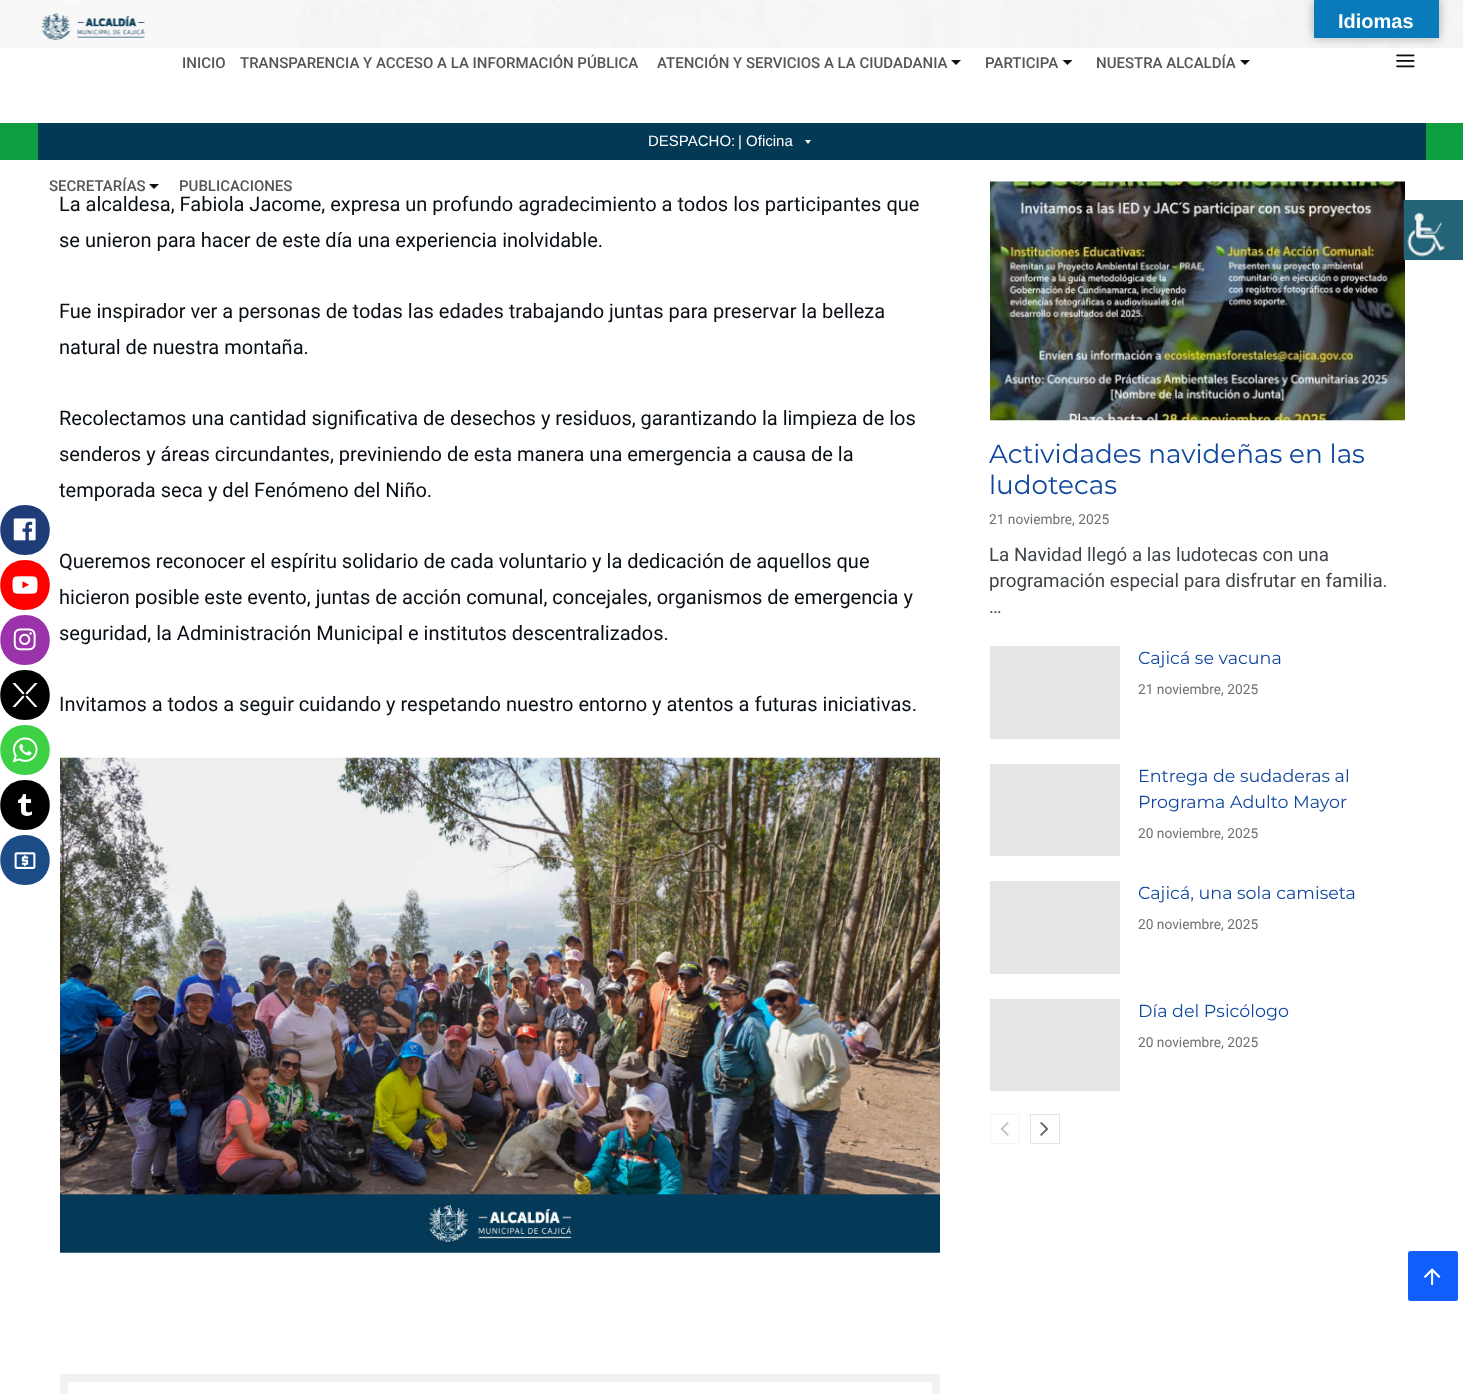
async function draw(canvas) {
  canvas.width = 1463
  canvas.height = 1394
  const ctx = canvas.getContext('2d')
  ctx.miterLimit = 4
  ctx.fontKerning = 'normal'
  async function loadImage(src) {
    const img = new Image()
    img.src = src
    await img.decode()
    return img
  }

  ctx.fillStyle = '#fff'
  ctx.fillRect(0, 0, 1463, 1394)
  ctx.drawImage(await loadImage('image0.png'), 0, 0, 1463, 48)
  ctx.fillStyle = '#1a1a1a99'
  ctx.fillRect(0, 0, 1463, 48)
  ctx.drawImage(await loadImage('image1.png'), 66, 0, 13, 4)
  ctx.save()
  ctx.beginPath()
  ctx.moveTo(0, 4)
  ctx.lineTo(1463, 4)
  ctx.lineTo(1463, 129)
  ctx.lineTo(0, 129)
  ctx.closePath()
  ctx.moveTo(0, 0)
  ctx.lineTo(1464, 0)
  ctx.lineTo(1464, 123)
  ctx.lineTo(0, 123)
  ctx.closePath()
  ctx.clip('evenodd')
  ctx.fillStyle = '#0000001a'
  ctx.filter = 'blur(1px)'
  ctx.beginPath()
  ctx.rect(3, 8, 1458, 117)
  ctx.fill()
  ctx.filter = 'none'
  ctx.restore()
  ctx.fillStyle = '#fffffff2'
  ctx.fillRect(0, 0, 1463, 123)
  ctx.drawImage(await loadImage('image3.png'), 1396, 54, 19, 14)
  ctx.fillStyle = '#0000004d'
  ctx.filter = 'blur(5.5px)'
  ctx.beginPath()
  ctx.rect(1314, 0, 125, 38)
  ctx.fill()
  ctx.filter = 'none'
  ctx.fillStyle = '#0a7bba'
  ctx.fillRect(1314, 0, 125, 38)
  ctx.font = 'bold 20px Liberation Sans'
  ctx.fillStyle = '#fff'
  ctx.fillText('Idiomas', 1338, 28)
  ctx.drawImage(await loadImage('image2.png'), 41, 13, 104, 28)
  ctx.font = '500 15px Roboto'
  ctx.fillStyle = '#555'
  ctx.fillText('INICIO', 182, 68)
  ctx.fillText('TRANSPARENCIA Y ACCESO A LA INFORMACIÓN PÚBLICA', 240, 68)
  ctx.fillText('ATENCIÓN Y SERVICIOS A LA CIUDADANIA', 657, 68)
  ctx.fillStyle = '#111'
  ctx.beginPath()
  ctx.moveTo(951, 60)
  ctx.lineTo(961, 60)
  ctx.lineTo(956, 65)
  ctx.closePath()
  ctx.fill()
  ctx.fillStyle = '#555'
  ctx.fillText('PARTICIPA', 985, 68)
  ctx.fillStyle = '#111'
  ctx.beginPath()
  ctx.moveTo(1062.5, 60)
  ctx.lineTo(1072.5, 60)
  ctx.lineTo(1067.5, 65)
  ctx.closePath()
  ctx.fill()
  ctx.fillStyle = '#555'
  ctx.fillText('NUESTRA ALCALDÍA', 1096, 68)
  ctx.fillStyle = '#111'
  ctx.beginPath()
  ctx.moveTo(1240, 60)
  ctx.lineTo(1250, 60)
  ctx.lineTo(1245, 65)
  ctx.closePath()
  ctx.fill()
  ctx.fillStyle = '#555'
  ctx.fillText('SECRETARÍAS', 49, 191)
  ctx.fillStyle = '#111'
  ctx.beginPath()
  ctx.moveTo(149, 184)
  ctx.lineTo(159, 184)
  ctx.lineTo(154, 189)
  ctx.closePath()
  ctx.fill()
  ctx.fillStyle = '#555'
  ctx.fillText('PUBLICACIONES', 179, 191)
  ctx.fillStyle = '#0d9f3f'
  ctx.fillRect(0, 123, 1463, 37)
  ctx.fillStyle = '#043956'
  ctx.fillRect(38, 123, 1388, 37)
  ctx.font = '15px Liberation Sans'
  ctx.fillStyle = '#fff'
  ctx.fillText('DESPACHO:', 648, 146)
  ctx.fillText('| Oficina', 738, 146)
  ctx.beginPath()
  ctx.moveTo(811, 140)
  ctx.lineTo(808, 144)
  ctx.lineTo(805, 140)
  ctx.closePath()
  ctx.fill()
  ctx.font = '20px Roboto'
  ctx.fillStyle = '#080e14'
  ctx.fillText('La alcaldesa, Fabiola Jacome, expresa un profundo agradecimiento a todos los participantes que', 59, 211)
  ctx.fillText('se unieron para hacer de este día una experiencia inolvidable.', 59, 247)
  ctx.fillText('Fue inspirador ver a personas de todas las edades trabajando juntas para preservar la belleza', 59, 318)
  ctx.fillText('natural de nuestra montaña.', 59, 354)
  ctx.fillText('Recolectamos una cantidad significativa de desechos y residuos, garantizando la limpieza de los', 59, 425)
  ctx.fillText('senderos y áreas circundantes, previniendo de esta manera una emergencia a causa de la', 59, 461)
  ctx.fillText('temporada seca y del Fenómeno del Niño.', 59, 497)
  ctx.fillText('Queremos reconocer el espíritu solidario de cada voluntario y la dedicación de aquellos que', 59, 568)
  ctx.fillText('hicieron posible este evento, juntas de acción comunal, concejales, organismos de emergencia y', 59, 604)
  ctx.fillText('seguridad, la Administración Municipal e institutos descentralizados.', 59, 640)
  ctx.fillText('Invitamos a todos a seguir cuidando y respetando nuestro entorno y atentos a futuras iniciativas.', 59, 711)
  ctx.drawImage(await loadImage('image4.png'), 60, 757, 880, 496)
  ctx.strokeStyle = '#f2f2f2'
  ctx.lineWidth = 8
  ctx.strokeRect(64, 1378, 872, 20)
  ctx.drawImage(await loadImage('image5.png'), 990, 181, 415, 240)
  ctx.font = '26.25px Montserrat'
  ctx.fillStyle = '#10479e'
  ctx.fillText('Actividades navideñas en las', 989, 463)
  ctx.fillText('ludotecas', 989, 494)
  ctx.font = '13.75px Roboto'
  ctx.fillStyle = '#707070'
  ctx.fillText('21 noviembre, 2025', 989, 524)
  ctx.font = '18.75px Roboto'
  ctx.fillStyle = '#3f4448'
  ctx.fillText('La Navidad llegó a las ludotecas con una', 989, 561)
  ctx.fillText('programación especial para disfrutar en familia.', 989, 587)
  ctx.fillText('…', 989, 613)
  ctx.fillStyle = '#e5e5e5'
  ctx.fillRect(990, 646, 130, 93)
  ctx.font = '17.5px Montserrat'
  ctx.fillStyle = '#10479e'
  ctx.fillText('Cajicá se vacuna', 1138, 664)
  ctx.font = '13.75px Roboto'
  ctx.fillStyle = '#707070'
  ctx.fillText('21 noviembre, 2025', 1138, 694)
  ctx.fillStyle = '#e5e5e5'
  ctx.fillRect(990, 764, 130, 92)
  ctx.font = '17.5px Montserrat'
  ctx.fillStyle = '#10479e'
  ctx.fillText('Entrega de sudaderas al', 1138, 782)
  ctx.fillText('Programa Adulto Mayor', 1138, 808)
  ctx.font = '13.75px Roboto'
  ctx.fillStyle = '#707070'
  ctx.fillText('20 noviembre, 2025', 1138, 838)
  ctx.fillStyle = '#e5e5e5'
  ctx.fillRect(990, 881, 130, 93)
  ctx.font = '17.5px Montserrat'
  ctx.fillStyle = '#10479e'
  ctx.fillText('Cajicá, una sola camiseta', 1138, 899)
  ctx.font = '13.75px Roboto'
  ctx.fillStyle = '#707070'
  ctx.fillText('20 noviembre, 2025', 1138, 929)
  ctx.fillStyle = '#e5e5e5'
  ctx.fillRect(990, 999, 130, 92)
  ctx.font = '17.5px Montserrat'
  ctx.fillStyle = '#10479e'
  ctx.fillText('Día del Psicólogo', 1138, 1017)
  ctx.font = '13.75px Roboto'
  ctx.fillStyle = '#707070'
  ctx.fillText('20 noviembre, 2025', 1138, 1047)
  ctx.strokeStyle = '#f4f4f4'
  ctx.lineWidth = 1
  ctx.strokeRect(990.5, 1114.5, 29, 29)
  ctx.drawImage(await loadImage('image6.png'), 1000, 1122, 9, 14)
  ctx.strokeStyle = '#e3e3e3'
  ctx.strokeRect(1030.5, 1114.5, 29, 29)
  ctx.drawImage(await loadImage('image7.png'), 1040, 1122, 9, 14)
  ctx.drawImage(await loadImage('image8.png'), 1403, 200, 60, 60)
  ctx.fillStyle = '#1d3c78'
  ctx.beginPath()
  ctx.moveTo(25, 505)
  ctx.bezierCurveTo(58, 505, 58, 555, 25, 555)
  ctx.bezierCurveTo(-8, 555, -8, 505, 25, 505)
  ctx.closePath()
  ctx.fill()
  ctx.drawImage(await loadImage('image9.png'), 13, 518, 23, 23)
  ctx.fillStyle = '#f00'
  ctx.beginPath()
  ctx.moveTo(25, 560)
  ctx.bezierCurveTo(58, 560, 58, 610, 25, 610)
  ctx.bezierCurveTo(-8, 610, -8, 560, 25, 560)
  ctx.closePath()
  ctx.fill()
  ctx.drawImage(await loadImage('image10.png'), 12, 576, 26, 18)
  ctx.fillStyle = '#9b33aa'
  ctx.beginPath()
  ctx.moveTo(25, 615)
  ctx.bezierCurveTo(58, 615, 58, 665, 25, 665)
  ctx.bezierCurveTo(-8, 665, -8, 615, 25, 615)
  ctx.closePath()
  ctx.fill()
  ctx.drawImage(await loadImage('image11.png'), 13, 628, 23, 23)
  ctx.fillStyle = '#000'
  ctx.beginPath()
  ctx.moveTo(25, 670)
  ctx.bezierCurveTo(58, 670, 58, 720, 25, 720)
  ctx.bezierCurveTo(-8, 720, -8, 670, 25, 670)
  ctx.closePath()
  ctx.fill()
  ctx.drawImage(await loadImage('image12.png'), 12, 683, 26, 24)
  ctx.fillStyle = '#3ed145'
  ctx.beginPath()
  ctx.moveTo(25, 725)
  ctx.bezierCurveTo(58, 725, 58, 775, 25, 775)
  ctx.bezierCurveTo(-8, 775, -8, 725, 25, 725)
  ctx.closePath()
  ctx.fill()
  ctx.drawImage(await loadImage('image13.png'), 12, 737, 26, 26)
  ctx.fillStyle = '#000'
  ctx.beginPath()
  ctx.moveTo(25, 780)
  ctx.bezierCurveTo(58, 780, 58, 830, 25, 830)
  ctx.bezierCurveTo(-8, 830, -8, 780, 25, 780)
  ctx.closePath()
  ctx.fill()
  ctx.drawImage(await loadImage('image14.png'), 18, 794, 14, 22)
  ctx.fillStyle = '#1c4c85'
  ctx.beginPath()
  ctx.moveTo(25, 835)
  ctx.bezierCurveTo(58, 835, 58, 885, 25, 885)
  ctx.bezierCurveTo(-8, 885, -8, 835, 25, 835)
  ctx.closePath()
  ctx.fill()
  ctx.drawImage(await loadImage('image15.png'), 14, 852, 22, 17)
  ctx.fillStyle = '#105efb'
  ctx.beginPath()
  ctx.roundRect(1408, 1251, 50, 50, 2.5)
  ctx.fill()
  ctx.drawImage(await loadImage('image16.png'), 1423, 1268, 18, 17)
}

draw(document.querySelector('canvas'))
